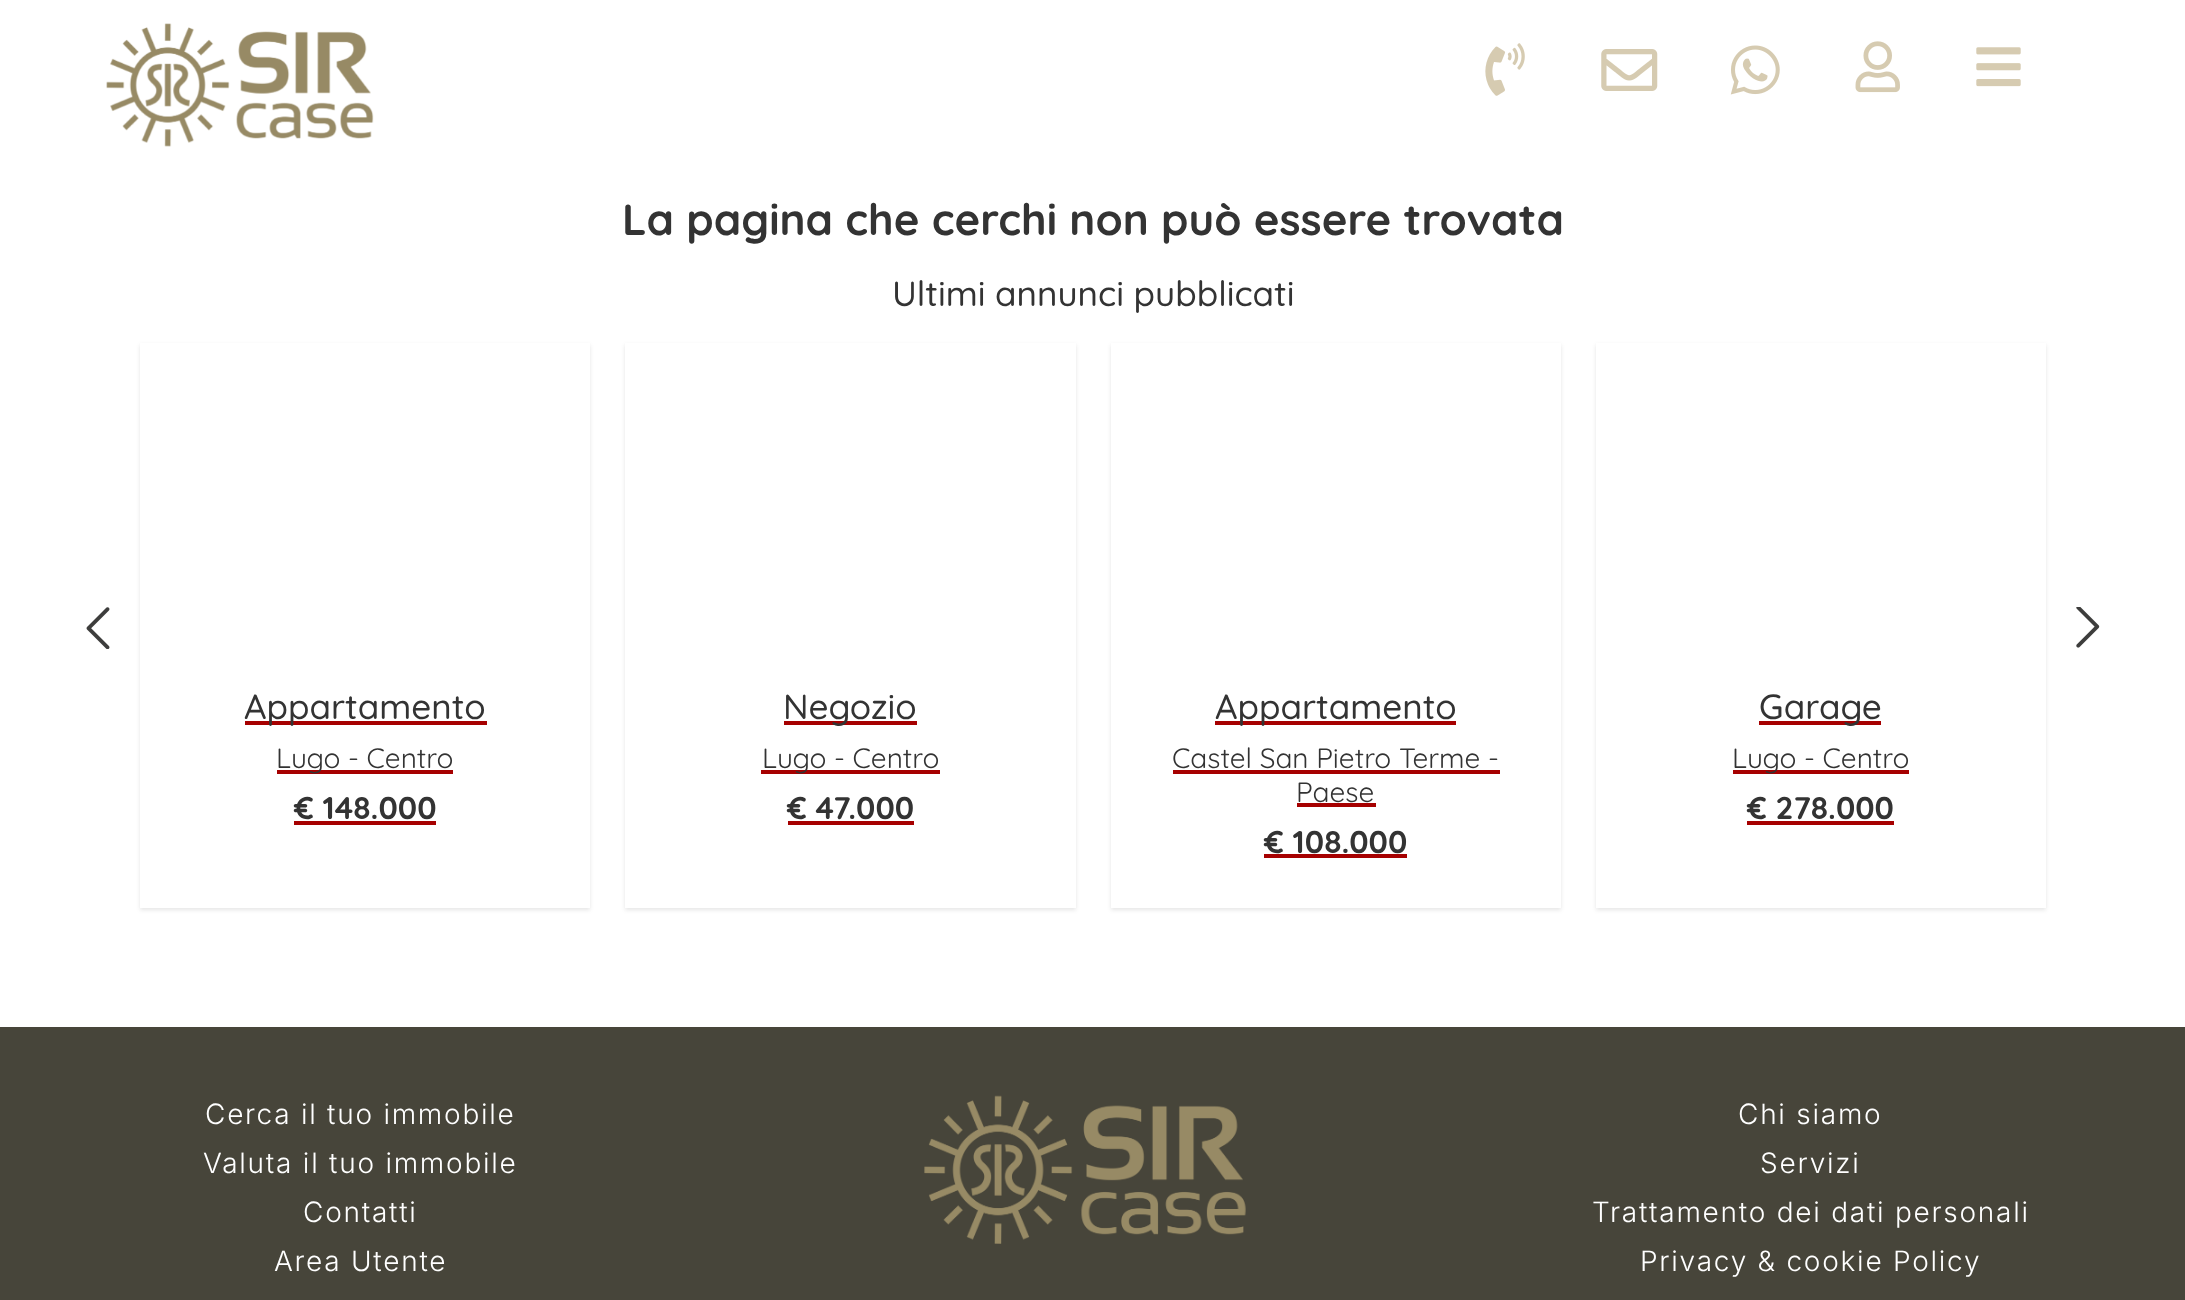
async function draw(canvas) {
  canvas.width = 2185
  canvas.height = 1300
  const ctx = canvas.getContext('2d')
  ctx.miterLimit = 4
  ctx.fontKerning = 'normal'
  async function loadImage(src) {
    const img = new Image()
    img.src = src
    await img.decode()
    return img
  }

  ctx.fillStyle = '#fff'
  ctx.fillRect(0, 0, 2185, 1300)
  ctx.drawImage(await loadImage('image0.png'), 106, 23, 268, 124)
  ctx.drawImage(await loadImage('image1.png'), 1485, 43, 40, 53)
  ctx.drawImage(await loadImage('image2.png'), 1601, 49, 57, 42)
  ctx.drawImage(await loadImage('image3.png'), 1730, 45, 50, 50)
  ctx.drawImage(await loadImage('image4.png'), 1855, 41, 45, 52)
  ctx.drawImage(await loadImage('image5.png'), 1976, 47, 45, 40)
  ctx.font = 'bold 43.75px Quicksand'
  ctx.fillStyle = '#333'
  ctx.fillText('La pagina che cerchi non può essere trovata', 622, 235)
  ctx.font = '500 35px Quicksand'
  ctx.fillText('Ultimi annunci pubblicati', 892, 306)
  ctx.drawImage(await loadImage('image6.png'), 86, 607, 24, 42)
  ctx.drawImage(await loadImage('image7.png'), 2076, 607, 24, 41)
  ctx.fillStyle = '#0000001a'
  ctx.filter = 'blur(2px)'
  ctx.beginPath()
  ctx.rect(140, 345, 450, 565)
  ctx.fill()
  ctx.filter = 'none'
  ctx.fillStyle = '#fff'
  ctx.fillRect(140, 343, 450, 565)
  ctx.fillStyle = '#a60000'
  ctx.fillRect(245, 721, 242, 4)
  ctx.fillStyle = '#333'
  ctx.fillText('Appartamento', 244, 719)
  ctx.fillStyle = '#a60000'
  ctx.fillRect(277, 770, 176, 4)
  ctx.font = '28px Quicksand'
  ctx.fillStyle = '#333'
  ctx.fillText('Lugo - Centro', 276, 768)
  ctx.font = 'bold 31.5px Quicksand'
  ctx.fillText('€ 148.000', 294, 819)
  ctx.fillStyle = '#a60000'
  ctx.fillRect(294, 821, 142, 4)
  ctx.save()
  ctx.beginPath()
  ctx.moveTo(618, 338)
  ctx.lineTo(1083, 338)
  ctx.lineTo(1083, 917)
  ctx.lineTo(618, 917)
  ctx.closePath()
  ctx.moveTo(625, 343)
  ctx.lineTo(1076, 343)
  ctx.lineTo(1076, 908)
  ctx.lineTo(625, 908)
  ctx.closePath()
  ctx.clip('evenodd')
  ctx.fillStyle = '#0000001a'
  ctx.filter = 'blur(2px)'
  ctx.beginPath()
  ctx.rect(625, 345, 451, 565)
  ctx.fill()
  ctx.filter = 'none'
  ctx.restore()
  ctx.fillRect(784, 721, 133, 4)
  ctx.font = '500 35px Quicksand'
  ctx.fillStyle = '#333'
  ctx.fillText('Negozio', 783, 719)
  ctx.fillStyle = '#a60000'
  ctx.fillRect(761, 770, 179, 4)
  ctx.font = '28px Quicksand'
  ctx.fillStyle = '#333'
  ctx.fillText('Lugo - Centro', 762, 768)
  ctx.font = 'bold 31.5px Quicksand'
  ctx.fillText('€ 47.000', 787, 819)
  ctx.fillStyle = '#a60000'
  ctx.fillRect(788, 821, 126, 4)
  ctx.fillStyle = '#0000001a'
  ctx.filter = 'blur(2px)'
  ctx.beginPath()
  ctx.rect(1111, 345, 450, 565)
  ctx.fill()
  ctx.filter = 'none'
  ctx.fillStyle = '#fff'
  ctx.fillRect(1111, 343, 450, 565)
  ctx.fillStyle = '#a60000'
  ctx.fillRect(1215, 721, 241, 4)
  ctx.font = '500 35px Quicksand'
  ctx.fillStyle = '#333'
  ctx.fillText('Appartamento', 1215, 719)
  ctx.font = '28px Quicksand'
  ctx.fillText('Castel San Pietro Terme -', 1172, 768)
  ctx.fillStyle = '#a60000'
  ctx.fillRect(1173, 770, 327, 4)
  ctx.fillStyle = '#333'
  ctx.fillText('Paese', 1296, 802)
  ctx.fillStyle = '#a60000'
  ctx.fillRect(1297, 803, 79, 4)
  ctx.font = 'bold 31.5px Quicksand'
  ctx.fillStyle = '#333'
  ctx.fillText('€ 108.000', 1264, 853)
  ctx.fillStyle = '#a60000'
  ctx.fillRect(1264, 854, 143, 4)
  ctx.fillStyle = '#0000001a'
  ctx.filter = 'blur(2px)'
  ctx.beginPath()
  ctx.rect(1596, 345, 450, 565)
  ctx.fill()
  ctx.filter = 'none'
  ctx.fillStyle = '#fff'
  ctx.fillRect(1596, 343, 450, 565)
  ctx.fillStyle = '#a60000'
  ctx.fillRect(1759, 721, 122, 4)
  ctx.font = '500 35px Quicksand'
  ctx.fillStyle = '#333'
  ctx.fillText('Garage', 1759, 719)
  ctx.fillStyle = '#a60000'
  ctx.fillRect(1733, 770, 176, 4)
  ctx.font = '28px Quicksand'
  ctx.fillStyle = '#333'
  ctx.fillText('Lugo - Centro', 1732, 768)
  ctx.font = 'bold 31.5px Quicksand'
  ctx.fillText('€ 278.000', 1747, 819)
  ctx.fillStyle = '#a60000'
  ctx.fillRect(1747, 821, 147, 4)
  ctx.fillStyle = '#47453a'
  ctx.fillRect(0, 1027, 2185, 273)
  ctx.letterSpacing = '1.75px'
  ctx.font = '300 28px Inter'
  ctx.fillStyle = '#fff'
  ctx.fillText('Cerca il tuo immobile', 205, 1124)
  ctx.fillText('Valuta il tuo immobile', 203, 1173)
  ctx.fillText('Contatti', 303, 1222)
  ctx.fillText('Area Utente', 274, 1271)
  ctx.drawImage(await loadImage('image8.png'), 924, 1095, 322, 149)
  ctx.fillText('Chi siamo', 1738, 1124)
  ctx.fillText('Servizi', 1760, 1173)
  ctx.fillText('Trattamento dei dati personali', 1592, 1222)
  ctx.fillText('Privacy & cookie Policy', 1640, 1271)
}

draw(document.querySelector('canvas'))
